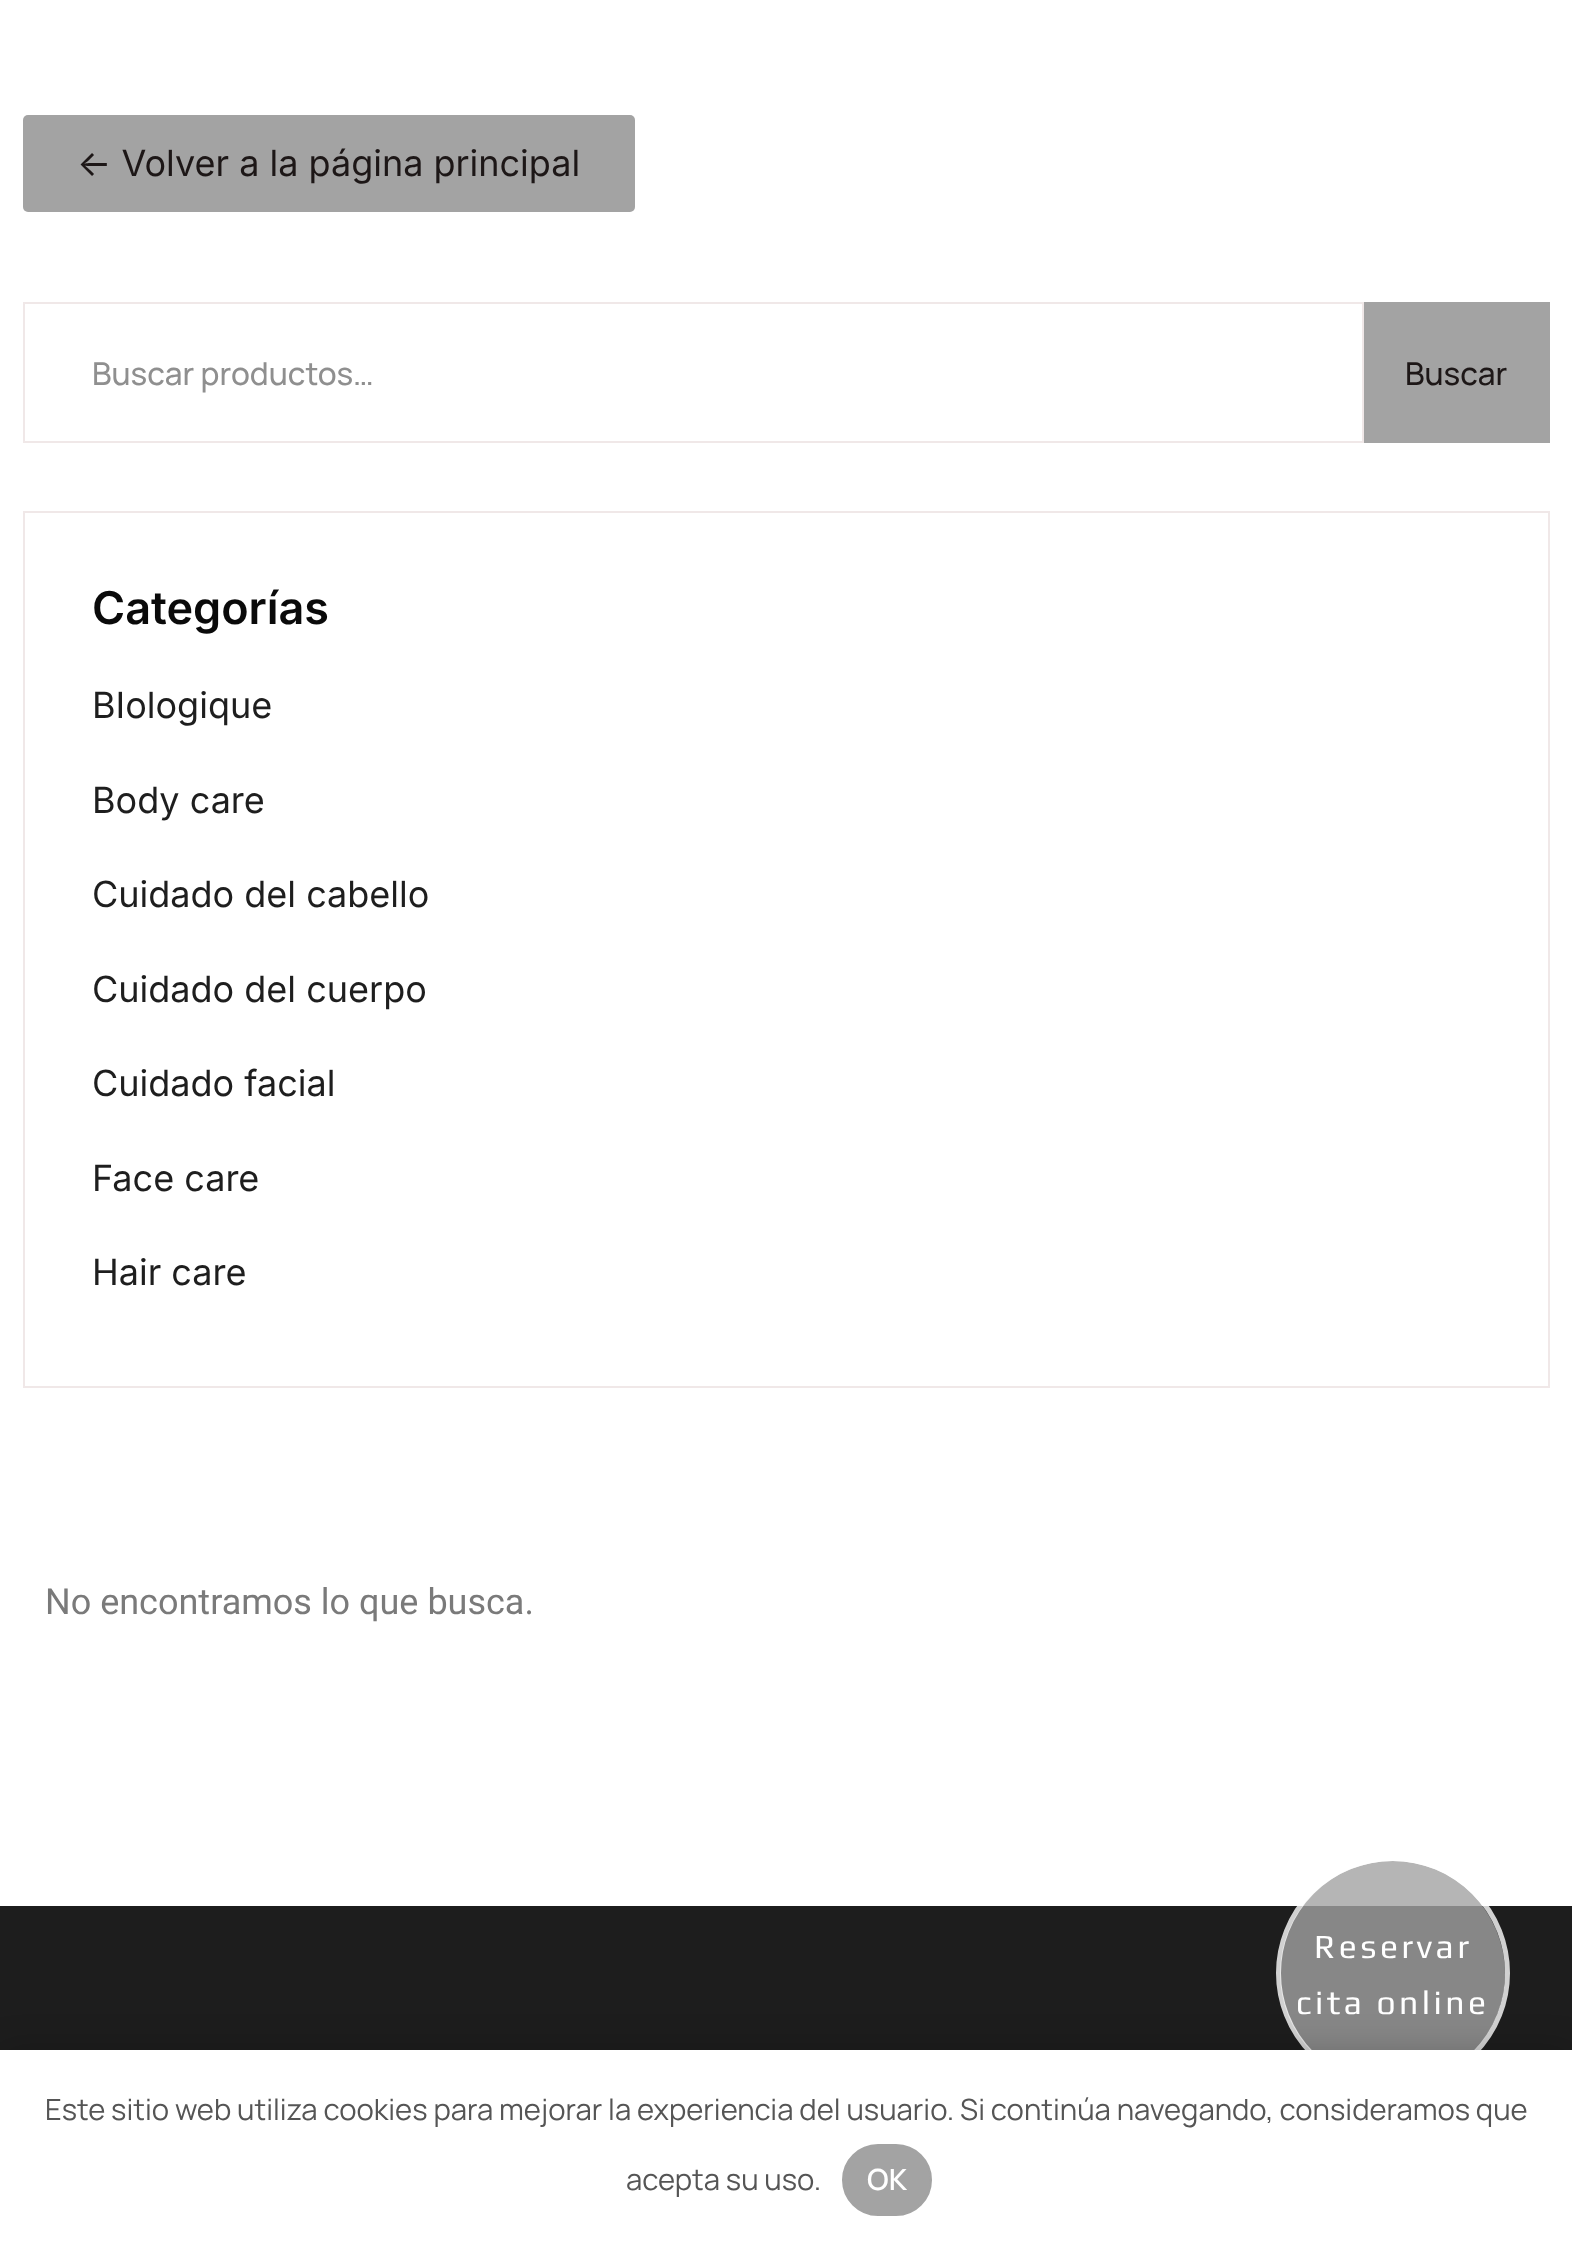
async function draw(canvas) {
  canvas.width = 1572
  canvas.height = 2243
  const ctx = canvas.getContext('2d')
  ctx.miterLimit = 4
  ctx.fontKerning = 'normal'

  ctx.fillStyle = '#fff'
  ctx.fillRect(0, 0, 1572, 2243)
  ctx.fillStyle = '#a3a3a3'
  ctx.beginPath()
  ctx.roundRect(23, 115, 612, 97, 5)
  ctx.fill()
  ctx.font = '36px Inter'
  ctx.fillStyle = '#1d1717'
  ctx.fillText('<- Volver a la página principal', 77, 176)
  ctx.strokeStyle = '#f0e8e8'
  ctx.lineWidth = 2
  ctx.strokeRect(24, 303, 1339, 139)
  ctx.font = '500 31.5px Manrope'
  ctx.fillStyle = '#8f8f8f'
  ctx.fillText('Buscar productos…', 92, 385)
  ctx.fillStyle = '#a3a3a3'
  ctx.fillRect(1364, 302, 186, 141)
  ctx.fillStyle = '#1d1717'
  ctx.fillText('Buscar', 1405, 385)
  ctx.strokeRect(24, 512, 1525, 875)
  ctx.font = '600 45px Inter'
  ctx.fillStyle = '#0a0a0a'
  ctx.fillText('Categorías', 92, 624)
  ctx.font = '36px Inter'
  ctx.fillStyle = '#1e1e1e'
  ctx.fillText('BIologique', 92, 718)
  ctx.fillText('Body care', 92, 813)
  ctx.fillText('Cuidado del cabello', 92, 907)
  ctx.fillText('Cuidado del cuerpo', 92, 1002)
  ctx.fillText('Cuidado facial', 92, 1096)
  ctx.fillText('Face care', 92, 1191)
  ctx.fillText('Hair care', 92, 1285)
  ctx.font = '36px Roboto'
  ctx.fillStyle = '#7a7a7a'
  ctx.fillText('No encontramos lo que busca.', 45, 1614)
  ctx.fillStyle = '#1d1d1d'
  ctx.fillRect(0, 1906, 1572, 144)
  ctx.fillStyle = '#a3a3a3cc'
  ctx.beginPath()
  ctx.arc(1392.5, 1973.5, 112.5, 0, 2 * Math.PI)
  ctx.fill()
  ctx.beginPath()
  ctx.arc(1393, 1973, 114.5, 0, 2 * Math.PI)
  ctx.strokeStyle = '#ffffffcc'
  ctx.lineWidth = 5
  ctx.stroke()
  ctx.letterSpacing = '3.4px'
  ctx.font = '33.75px Play'
  ctx.fillStyle = '#fff'
  ctx.fillText('Reservar', 1314, 1958)
  ctx.fillText('cita online', 1296, 2014)
  ctx.fillStyle = '#00000033'
  ctx.filter = 'blur(17px)'
  ctx.beginPath()
  ctx.rect(0, 2050, 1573, 193)
  ctx.fill()
  ctx.filter = 'none'
  ctx.fillStyle = '#fff'
  ctx.fillRect(0, 2050, 1572, 193)
  ctx.letterSpacing = '0px'
  ctx.font = '29.25px Manrope'
  ctx.fillStyle = '#555'
  ctx.fillText('Este sitio web utiliza cookies para mejorar la experiencia del usuario. Si continúa navegando, consideramos que', 45, 2120)
  ctx.fillText('acepta su uso.', 626, 2190)
  ctx.fillStyle = '#a3a3a3'
  ctx.beginPath()
  ctx.roundRect(843, 2145, 88, 70, 35)
  ctx.fill()
  ctx.strokeStyle = '#a3a3a3'
  ctx.lineWidth = 2
  ctx.stroke()
  ctx.font = '600 29.25px Manrope'
  ctx.fillStyle = '#fff'
  ctx.fillText('OK', 867, 2190)
}

draw(document.querySelector('canvas'))
